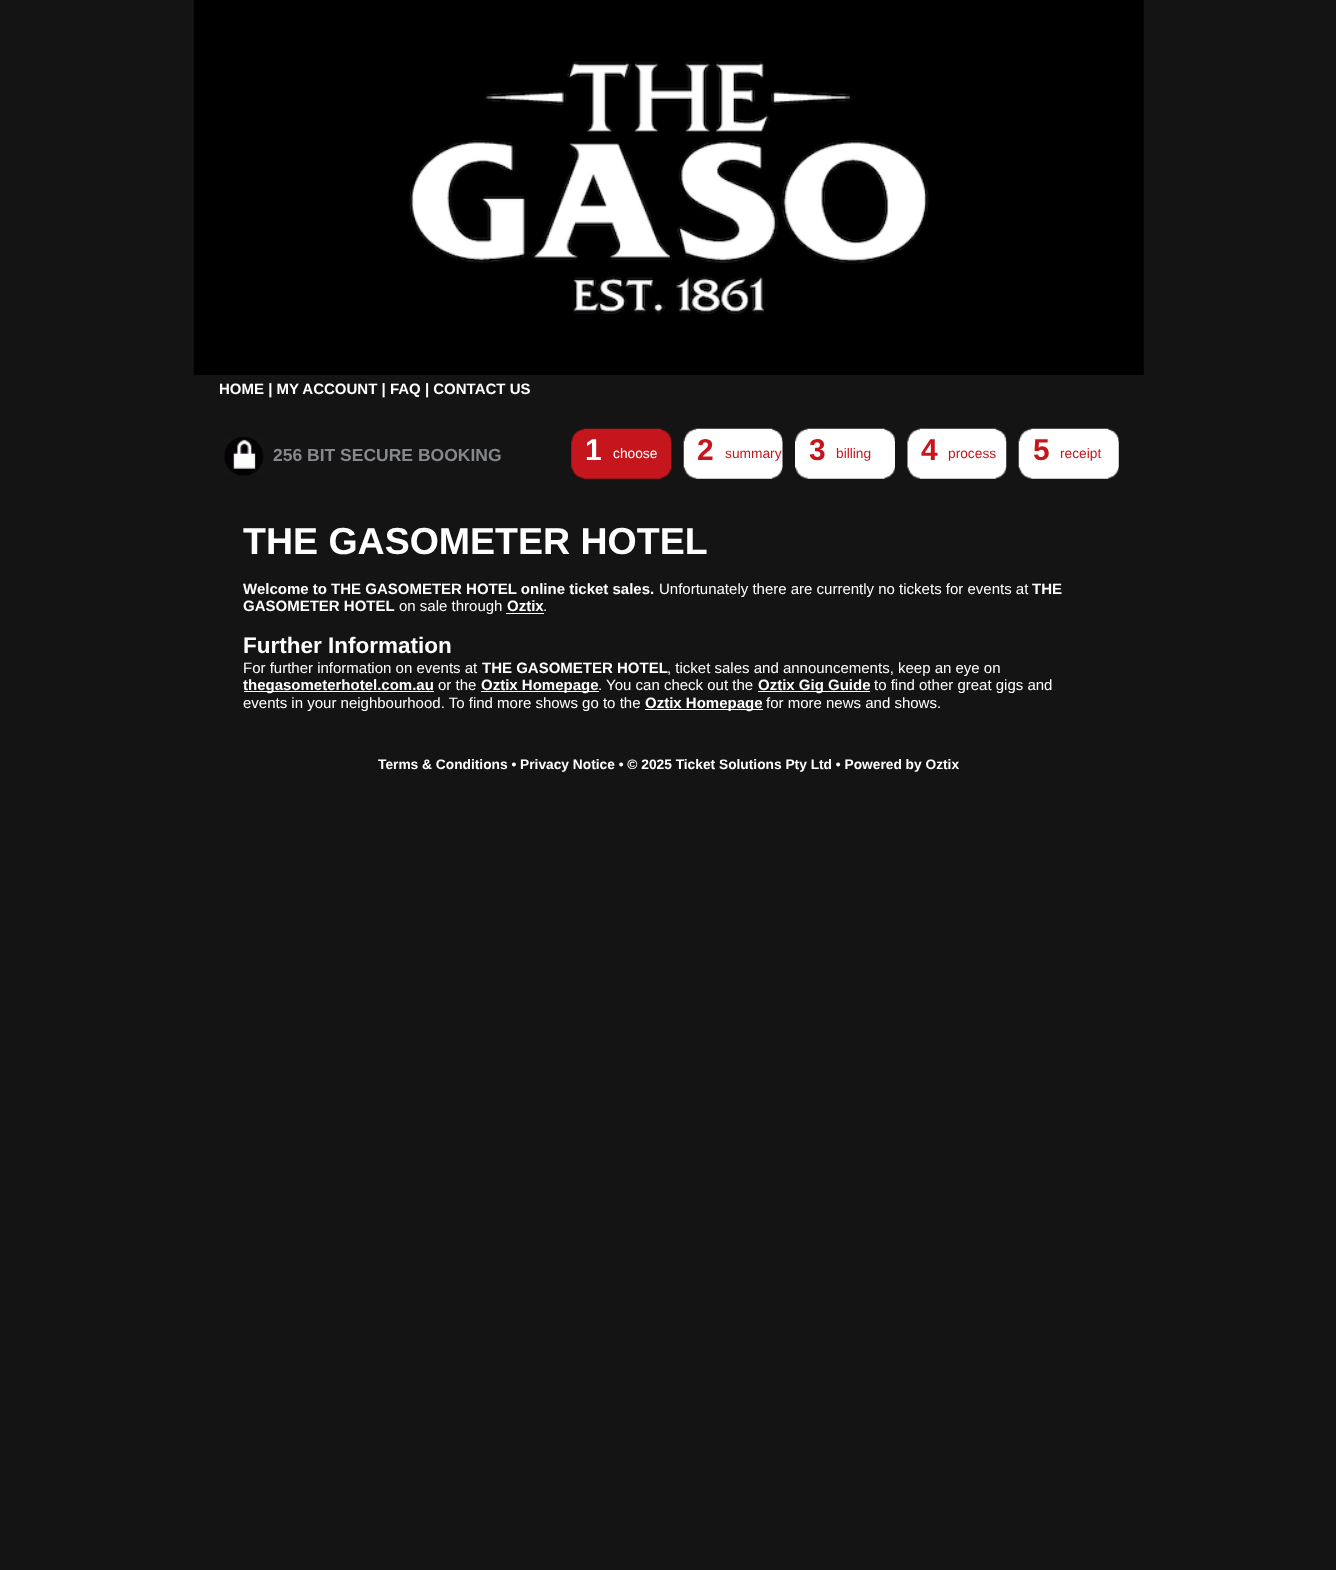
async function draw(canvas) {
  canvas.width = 1336
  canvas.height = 1570
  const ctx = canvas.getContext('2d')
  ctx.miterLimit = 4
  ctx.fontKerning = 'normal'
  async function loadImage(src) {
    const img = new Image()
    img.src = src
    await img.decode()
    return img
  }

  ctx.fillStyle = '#141414'
  ctx.fillRect(0, 0, 1336, 1570)
  ctx.drawImage(await loadImage('image0.png'), 193, 0, 951, 375)
  ctx.font = 'bold 15px Liberation Sans'
  ctx.fillStyle = '#fff'
  ctx.fillText('HOME | MY ACCOUNT | FAQ | CONTACT US', 219, 394)
  ctx.drawImage(await loadImage('image1.png'), 224, 436, 40, 40)
  ctx.font = 'bold 17.5px Liberation Sans'
  ctx.fillStyle = '#86888b'
  ctx.fillText('256 BIT SECURE BOOKING', 273, 461)
  ctx.drawImage(await loadImage('image2.png'), 571, 428, 101, 51)
  ctx.font = 'bold 30px Liberation Sans'
  ctx.fillStyle = '#fff'
  ctx.fillText('1', 585, 460)
  ctx.font = '13.75px Liberation Sans'
  ctx.fillText('choose', 613, 458)
  ctx.drawImage(await loadImage('image3.png'), 683, 428, 100, 51)
  ctx.font = 'bold 30px Liberation Sans'
  ctx.fillStyle = '#c6161d'
  ctx.fillText('2', 697, 460)
  ctx.font = '13.75px Liberation Sans'
  ctx.fillText('summary', 725, 458)
  ctx.drawImage(await loadImage('image4.png'), 795, 428, 100, 51)
  ctx.font = 'bold 30px Liberation Sans'
  ctx.fillText('3', 809, 460)
  ctx.font = '13.75px Liberation Sans'
  ctx.fillText('billing', 836, 458)
  ctx.drawImage(await loadImage('image5.png'), 907, 428, 100, 51)
  ctx.font = 'bold 30px Liberation Sans'
  ctx.fillText('4', 921, 460)
  ctx.font = '13.75px Liberation Sans'
  ctx.fillText('process', 948, 458)
  ctx.drawImage(await loadImage('image6.png'), 1018, 428, 101, 51)
  ctx.font = 'bold 30px Liberation Sans'
  ctx.fillText('5', 1033, 460)
  ctx.font = '13.75px Liberation Sans'
  ctx.fillText('receipt', 1060, 458)
  ctx.font = 'bold 37.5px Liberation Sans'
  ctx.fillStyle = '#fff'
  ctx.fillText('THE GASOMETER HOTEL', 243, 554)
  ctx.font = 'bold 15px Liberation Sans'
  ctx.fillText('Welcome to THE GASOMETER HOTEL online ticket sales.', 243, 594)
  ctx.font = '15px Liberation Sans'
  ctx.fillText('Unfortunately there are currently no tickets for events at', 659, 594)
  ctx.font = 'bold 15px Liberation Sans'
  ctx.fillText('THE', 1032, 594)
  ctx.fillText('GASOMETER HOTEL', 243, 611)
  ctx.font = '15px Liberation Sans'
  ctx.fillText('on sale through', 399, 611)
  ctx.font = 'bold 15px Liberation Sans'
  ctx.fillText('Oztix', 507, 611)
  ctx.font = '15px Liberation Sans'
  ctx.fillText('.', 543, 611)
  ctx.fillRect(506, 613, 38, 1)
  ctx.font = 'bold 22.5px Liberation Sans'
  ctx.fillText('Further Information', 243, 653)
  ctx.font = '15px Liberation Sans'
  ctx.fillText('For further information on events at', 243, 673)
  ctx.font = 'bold 15px Liberation Sans'
  ctx.fillText('THE GASOMETER HOTEL', 482, 673)
  ctx.font = '15px Liberation Sans'
  ctx.fillText(', ticket sales and announcements, keep an eye on', 667, 673)
  ctx.fillRect(244, 691, 190, 1)
  ctx.font = 'bold 15px Liberation Sans'
  ctx.fillText('thegasometerhotel.com.au', 243, 690)
  ctx.font = '15px Liberation Sans'
  ctx.fillText('or the', 438, 690)
  ctx.fillRect(481, 691, 118, 1)
  ctx.font = 'bold 15px Liberation Sans'
  ctx.fillText('Oztix Homepage', 481, 690)
  ctx.font = '15px Liberation Sans'
  ctx.fillText('. You can check out the', 598, 690)
  ctx.fillRect(758, 691, 112, 1)
  ctx.font = 'bold 15px Liberation Sans'
  ctx.fillText('Oztix Gig Guide', 758, 690)
  ctx.font = '15px Liberation Sans'
  ctx.fillText('to find other great gigs and', 874, 690)
  ctx.fillText('events in your neighbourhood. To find more shows go to the', 243, 708)
  ctx.fillRect(645, 709, 118, 1)
  ctx.font = 'bold 15px Liberation Sans'
  ctx.fillText('Oztix Homepage', 645, 708)
  ctx.font = '15px Liberation Sans'
  ctx.fillText('for more news and shows.', 766, 708)
  ctx.font = 'bold 13.75px Liberation Sans'
  ctx.fillText('Terms & Conditions • Privacy Notice • © 2025 Ticket Solutions Pty Ltd • Powered by Oztix', 378, 769)
}

draw(document.querySelector('canvas'))
